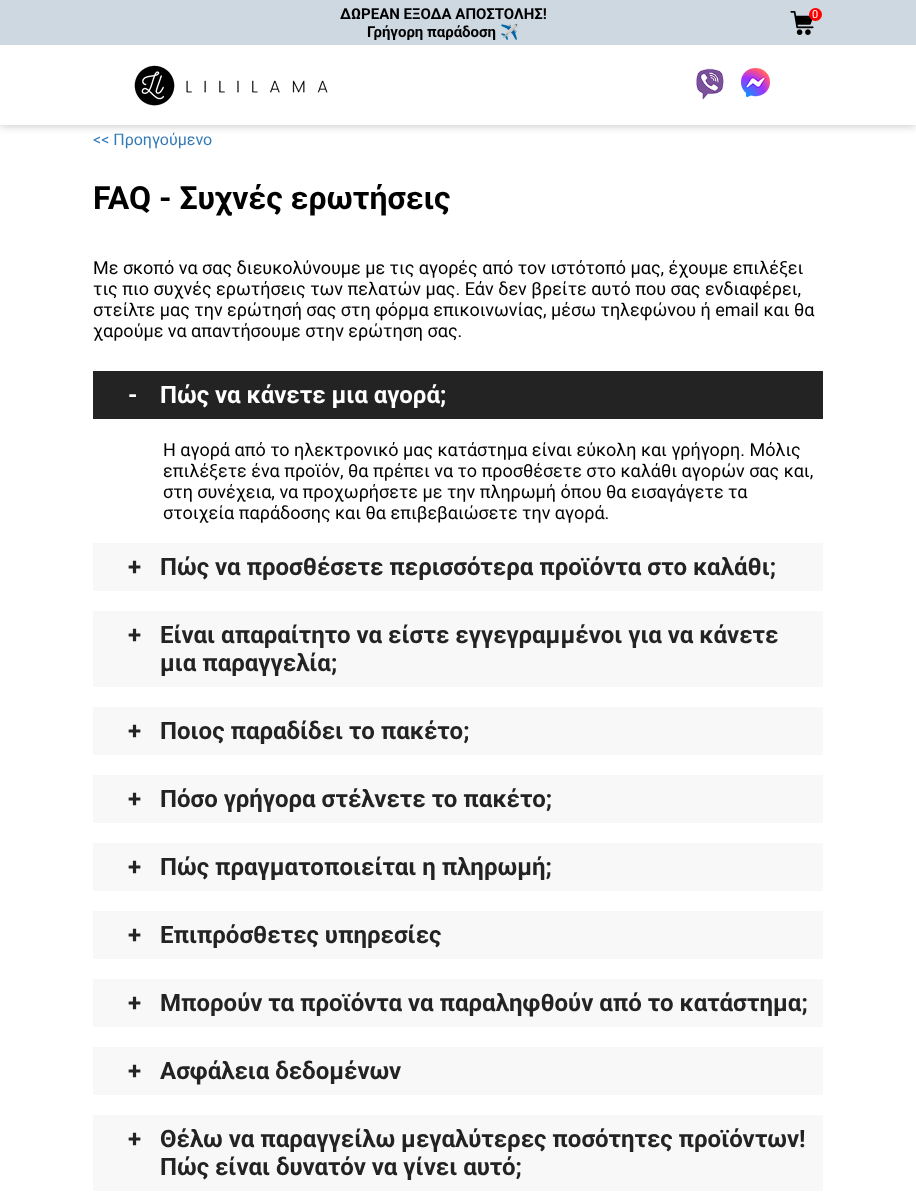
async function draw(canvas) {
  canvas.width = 916
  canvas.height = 1195
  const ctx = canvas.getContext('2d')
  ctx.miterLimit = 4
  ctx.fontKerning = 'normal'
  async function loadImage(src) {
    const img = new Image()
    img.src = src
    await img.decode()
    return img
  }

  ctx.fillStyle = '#fff'
  ctx.fillRect(0, 0, 916, 1195)
  ctx.save()
  ctx.beginPath()
  ctx.rect(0, 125, 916, 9)
  ctx.clip()
  ctx.fillStyle = '#c8c8c8'
  ctx.filter = 'blur(4px)'
  ctx.beginPath()
  ctx.rect(0, 46, 916, 80)
  ctx.fill()
  ctx.filter = 'none'
  ctx.restore()
  ctx.fillStyle = '#ced8e1'
  ctx.fillRect(0, 0, 916, 45)
  ctx.font = 'bold 15px Roboto'
  ctx.fillStyle = '#000'
  ctx.fillText('ΔΩΡΕΑΝ ΕΞΟΔΑ ΑΠΟΣΤΟΛΗΣ!', 340, 19)
  ctx.fillText('Γρήγορη παράδοση', 367, 37)
  ctx.font = 'bold 15px Noto Color Emoji'
  ctx.fillText('✈️', 500, 37)
  ctx.drawImage(await loadImage('image0.png'), 790, 11, 24, 24)
  ctx.fillStyle = '#f00'
  ctx.beginPath()
  ctx.arc(815.5, 14.5, 6.5, 0, 2 * Math.PI)
  ctx.fill()
  ctx.font = '11px Roboto'
  ctx.fillStyle = '#fff'
  ctx.fillText('0', 812, 18)
  ctx.drawImage(await loadImage('image1.png'), 134, 65, 194, 41)
  ctx.drawImage(await loadImage('image2.png'), 696, 68, 28, 32)
  ctx.drawImage(await loadImage('image3.png'), 741, 68, 29, 29)
  ctx.font = '16px Roboto'
  ctx.fillStyle = '#337ab7'
  ctx.fillText('<< Προηγούμενο', 93, 145)
  ctx.font = 'bold 32px Roboto'
  ctx.fillStyle = '#000'
  ctx.fillText('FAQ - Συχνές ερωτήσεις', 93, 209)
  ctx.font = '18px Roboto'
  ctx.fillText('Με σκοπό να σας διευκολύνουμε με τις αγορές από τον ιστότοπό μας, έχουμε επιλέξει', 93, 274)
  ctx.fillText('τις πιο συχνές ερωτήσεις των πελατών μας. Εάν δεν βρείτε αυτό που σας ενδιαφέρει,', 93, 295)
  ctx.fillText('στείλτε μας την ερώτησή σας στη φόρμα επικοινωνίας, μέσω τηλεφώνου ή email και θα', 93, 316)
  ctx.fillText('χαρούμε να απαντήσουμε στην ερώτηση σας.', 93, 337)
  ctx.fillStyle = '#232323'
  ctx.fillRect(93, 371, 730, 48)
  ctx.font = 'bold 24px Roboto'
  ctx.fillStyle = '#fff'
  ctx.fillText('-', 128, 403)
  ctx.fillText('Πώς να κάνετε μια αγορά;', 160, 403)
  ctx.font = '18px Roboto'
  ctx.fillStyle = '#000'
  ctx.fillText('Η αγορά από το ηλεκτρονικό μας κατάστημα είναι εύκολη και γρήγορη. Μόλις', 163, 456)
  ctx.fillText('επιλέξετε ένα προϊόν, θα πρέπει να το προσθέσετε στο καλάθι αγορών σας και,', 163, 477)
  ctx.fillText('στη συνέχεια, να προχωρήσετε με την πληρωμή όπου θα εισαγάγετε τα', 163, 498)
  ctx.fillText('στοιχεία παράδοσης και θα επιβεβαιώσετε την αγορά.', 163, 519)
  ctx.fillStyle = '#f8f8f8'
  ctx.fillRect(93, 543, 730, 48)
  ctx.font = 'bold 24px Roboto'
  ctx.fillStyle = '#232323'
  ctx.fillText('+', 128, 575)
  ctx.fillText('Πώς να προσθέσετε περισσότερα προϊόντα στο καλάθι;', 160, 575)
  ctx.fillStyle = '#f8f8f8'
  ctx.fillRect(93, 611, 730, 76)
  ctx.fillStyle = '#232323'
  ctx.fillText('+', 128, 643)
  ctx.fillText('Είναι απαραίτητο να είστε εγγεγραμμένοι για να κάνετε', 160, 643)
  ctx.fillText('μια παραγγελία;', 160, 671)
  ctx.fillStyle = '#f8f8f8'
  ctx.fillRect(93, 707, 730, 48)
  ctx.fillStyle = '#232323'
  ctx.fillText('+', 128, 739)
  ctx.fillText('Ποιος παραδίδει το πακέτο;', 160, 739)
  ctx.fillStyle = '#f8f8f8'
  ctx.fillRect(93, 775, 730, 48)
  ctx.fillStyle = '#232323'
  ctx.fillText('+', 128, 807)
  ctx.fillText('Πόσο γρήγορα στέλνετε το πακέτο;', 160, 807)
  ctx.fillStyle = '#f8f8f8'
  ctx.fillRect(93, 843, 730, 48)
  ctx.fillStyle = '#232323'
  ctx.fillText('+', 128, 875)
  ctx.fillText('Πώς πραγματοποιείται η πληρωμή;', 160, 875)
  ctx.fillStyle = '#f8f8f8'
  ctx.fillRect(93, 911, 730, 48)
  ctx.fillStyle = '#232323'
  ctx.fillText('+', 128, 943)
  ctx.fillText('Επιπρόσθετες υπηρεσίες', 160, 943)
  ctx.fillStyle = '#f8f8f8'
  ctx.fillRect(93, 979, 730, 48)
  ctx.fillStyle = '#232323'
  ctx.fillText('+', 128, 1011)
  ctx.fillText('Μπορούν τα προϊόντα να παραληφθούν από το κατάστημα;', 160, 1011)
  ctx.fillStyle = '#f8f8f8'
  ctx.fillRect(93, 1047, 730, 48)
  ctx.fillStyle = '#232323'
  ctx.fillText('+', 128, 1079)
  ctx.fillText('Ασφάλεια δεδομένων', 160, 1079)
  ctx.fillStyle = '#f8f8f8'
  ctx.fillRect(93, 1115, 730, 76)
  ctx.fillStyle = '#232323'
  ctx.fillText('+', 128, 1147)
  ctx.fillText('Θέλω να παραγγείλω μεγαλύτερες ποσότητες προϊόντων!', 160, 1147)
  ctx.fillText('Πώς είναι δυνατόν να γίνει αυτό;', 160, 1175)
}

draw(document.querySelector('canvas'))
